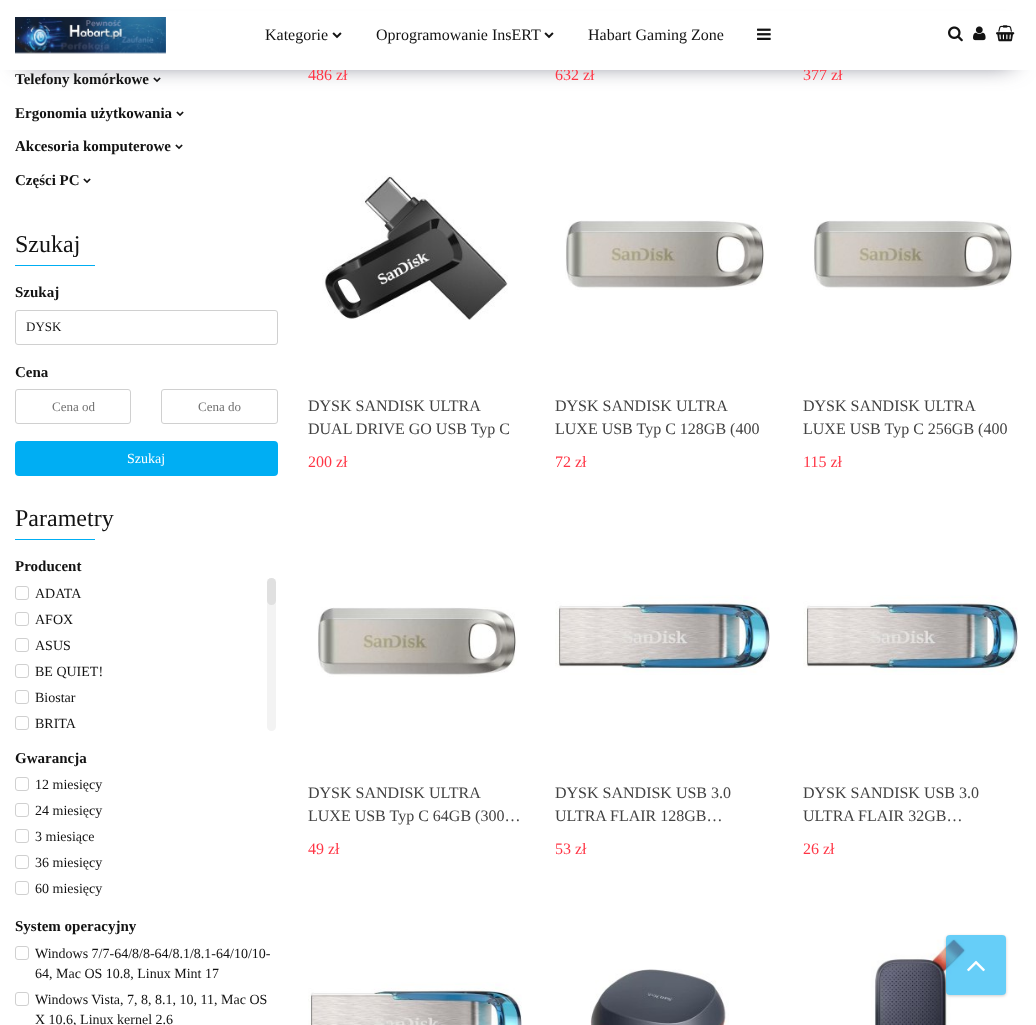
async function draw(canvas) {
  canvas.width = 1036
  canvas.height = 1025
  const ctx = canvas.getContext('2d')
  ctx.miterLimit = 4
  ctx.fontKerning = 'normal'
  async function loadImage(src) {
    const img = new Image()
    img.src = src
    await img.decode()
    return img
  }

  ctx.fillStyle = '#fff'
  ctx.fillRect(0, 0, 1036, 1025)
  ctx.drawImage(await loadImage('image6.png'), 153, 77, 8, 6)
  ctx.fillStyle = '#42445a'
  ctx.filter = 'blur(12.5px)'
  ctx.beginPath()
  ctx.rect(22, 38, 990, 24)
  ctx.fill()
  ctx.filter = 'none'
  ctx.font = '16px Liberation Serif'
  ctx.fillStyle = '#ff3545'
  ctx.fillText('486 zł', 308, 80)
  ctx.fillText('632 zł', 555, 80)
  ctx.fillText('377 zł', 803, 80)
  ctx.fillStyle = '#fff'
  ctx.fillRect(0, 11, 1036, 59)
  ctx.drawImage(await loadImage('image0.png'), 15, 17, 151, 37)
  ctx.fillStyle = '#131313'
  ctx.fillText('Kategorie', 265, 40)
  ctx.drawImage(await loadImage('image1.png'), 332, 32, 10, 7)
  ctx.fillText('Oprogramowanie InsERT', 376, 40)
  ctx.drawImage(await loadImage('image1.png'), 544, 32, 10, 7)
  ctx.fillText('Habart Gaming Zone', 588, 40)
  ctx.drawImage(await loadImage('image2.png'), 757, 28, 14, 12)
  ctx.drawImage(await loadImage('image3.png'), 948, 26, 15, 16)
  ctx.drawImage(await loadImage('image4.png'), 973, 26, 13, 15)
  ctx.drawImage(await loadImage('image5.png'), 996, 25, 19, 17)
  ctx.font = 'bold 15px Liberation Serif'
  ctx.fillText('Telefony komórkowe', 15, 84)
  ctx.fillText('Ergonomia użytkowania', 15, 118)
  ctx.drawImage(await loadImage('image6.png'), 176, 111, 8, 6)
  ctx.fillText('Akcesoria komputerowe', 15, 151)
  ctx.drawImage(await loadImage('image6.png'), 175, 144, 8, 6)
  ctx.fillText('Części PC', 15, 185)
  ctx.drawImage(await loadImage('image6.png'), 83, 178, 8, 6)
  ctx.font = '24px Liberation Serif'
  ctx.fillText('Szukaj', 15, 252)
  ctx.fillStyle = '#00aef3'
  ctx.fillRect(15, 265, 80, 1)
  ctx.font = 'bold 15px Liberation Serif'
  ctx.fillStyle = '#131313'
  ctx.fillText('Szukaj', 15, 297)
  ctx.beginPath()
  ctx.roundRect(15.5, 310.5, 262, 34, 2.5)
  ctx.strokeStyle = '#d0d0d0'
  ctx.stroke()
  ctx.font = '13px Liberation Serif'
  ctx.fillText('DYSK', 26, 331)
  ctx.font = 'bold 15px Liberation Serif'
  ctx.fillText('Cena', 15, 377)
  ctx.beginPath()
  ctx.roundRect(15.5, 389.5, 115, 34, 2.5)
  ctx.stroke()
  ctx.font = '13px Liberation Serif'
  ctx.fillStyle = '#717171'
  ctx.fillText('Cena od', 52, 411)
  ctx.beginPath()
  ctx.roundRect(161.5, 389.5, 116, 34, 2.5)
  ctx.stroke()
  ctx.fillText('Cena do', 198, 411)
  ctx.fillStyle = '#00aef3'
  ctx.beginPath()
  ctx.roundRect(16.5, 442.5, 260, 32, 2.5)
  ctx.fill()
  ctx.strokeStyle = '#00aef3'
  ctx.lineWidth = 3
  ctx.stroke()
  ctx.font = '14px Liberation Serif'
  ctx.fillStyle = '#fff'
  ctx.fillText('Szukaj', 127, 463)
  ctx.font = '24px Liberation Serif'
  ctx.fillStyle = '#131313'
  ctx.fillText('Parametry', 15, 526)
  ctx.fillStyle = '#00aef3'
  ctx.fillRect(15, 539, 80, 1)
  ctx.font = 'bold 15px Liberation Serif'
  ctx.fillStyle = '#131313'
  ctx.fillText('Producent', 15, 571)
  ctx.beginPath()
  ctx.roundRect(15.5, 586.5, 13, 13, 2.5)
  ctx.strokeStyle = '#d0d0d0'
  ctx.lineWidth = 1
  ctx.stroke()
  ctx.font = '14px Liberation Serif'
  ctx.fillText('ADATA', 35, 598)
  ctx.beginPath()
  ctx.roundRect(15.5, 612.5, 13, 13, 2.5)
  ctx.stroke()
  ctx.fillText('AFOX', 35, 624)
  ctx.beginPath()
  ctx.roundRect(15.5, 638.5, 13, 13, 2.5)
  ctx.stroke()
  ctx.fillText('ASUS', 35, 650)
  ctx.beginPath()
  ctx.roundRect(15.5, 664.5, 13, 13, 2.5)
  ctx.stroke()
  ctx.fillText('BE QUIET!', 35, 676)
  ctx.beginPath()
  ctx.roundRect(15.5, 690.5, 13, 13, 2.5)
  ctx.stroke()
  ctx.fillText('Biostar', 35, 702)
  ctx.beginPath()
  ctx.roundRect(15.5, 716.5, 13, 13, 2.5)
  ctx.stroke()
  ctx.fillText('BRITA', 35, 728)
  ctx.fillStyle = '#f3f3f3'
  ctx.beginPath()
  ctx.roundRect(267, 578, 9, 153, 4.5)
  ctx.fill()
  ctx.fillStyle = '#c2c2c266'
  ctx.beginPath()
  ctx.roundRect(267, 578, 9, 27, 4.5)
  ctx.fill()
  ctx.font = 'bold 15px Liberation Serif'
  ctx.fillStyle = '#131313'
  ctx.fillText('Gwarancja', 15, 763)
  ctx.beginPath()
  ctx.roundRect(15.5, 777.5, 13, 13, 2.5)
  ctx.stroke()
  ctx.font = '14px Liberation Serif'
  ctx.fillText('12 miesięcy', 35, 789)
  ctx.beginPath()
  ctx.roundRect(15.5, 803.5, 13, 13, 2.5)
  ctx.stroke()
  ctx.fillText('24 miesięcy', 35, 815)
  ctx.beginPath()
  ctx.roundRect(15.5, 829.5, 13, 13, 2.5)
  ctx.stroke()
  ctx.fillText('3 miesiące', 35, 841)
  ctx.beginPath()
  ctx.roundRect(15.5, 855.5, 13, 13, 2.5)
  ctx.stroke()
  ctx.fillText('36 miesięcy', 35, 867)
  ctx.beginPath()
  ctx.roundRect(15.5, 881.5, 13, 13, 2.5)
  ctx.stroke()
  ctx.fillText('60 miesięcy', 35, 893)
  ctx.font = 'bold 15px Liberation Serif'
  ctx.fillText('System operacyjny', 15, 931)
  ctx.beginPath()
  ctx.roundRect(15.5, 946.5, 13, 13, 2.5)
  ctx.stroke()
  ctx.font = '14px Liberation Serif'
  ctx.fillText('Windows 7/7-64/8/8-64/8.1/8.1-64/10/10-', 35, 958)
  ctx.fillText('64, Mac OS 10.8, Linux Mint 17', 35, 978)
  ctx.beginPath()
  ctx.roundRect(15.5, 992.5, 13, 13, 2.5)
  ctx.stroke()
  ctx.fillText('Windows Vista, 7, 8, 8.1, 10, 11, Mac OS', 35, 1004)
  ctx.fillText('X 10.6, Linux kernel 2.6', 35, 1024)
  ctx.drawImage(await loadImage('image7.png'), 322, 175, 186, 145)
  ctx.font = '16px Liberation Serif'
  ctx.fillStyle = '#424242'
  ctx.fillText('DYSK SANDISK ULTRA', 308, 411)
  ctx.fillText('DUAL DRIVE GO USB Typ C', 308, 434)
  ctx.fillStyle = '#ff3545'
  ctx.fillText('200 zł', 308, 467)
  ctx.drawImage(await loadImage('image8.png'), 565, 220, 200, 70)
  ctx.fillStyle = '#424242'
  ctx.fillText('DYSK SANDISK ULTRA', 555, 411)
  ctx.fillText('LUXE USB Typ C 128GB (400', 555, 434)
  ctx.fillStyle = '#ff3545'
  ctx.fillText('72 zł', 555, 467)
  ctx.drawImage(await loadImage('image8.png'), 813, 220, 200, 70)
  ctx.fillStyle = '#424242'
  ctx.fillText('DYSK SANDISK ULTRA', 803, 411)
  ctx.fillText('LUXE USB Typ C 256GB (400', 803, 434)
  ctx.fillStyle = '#ff3545'
  ctx.fillText('115 zł', 803, 467)
  ctx.drawImage(await loadImage('image8.png'), 317, 607, 200, 70)
  ctx.fillStyle = '#424242'
  ctx.fillText('DYSK SANDISK ULTRA', 308, 798)
  ctx.fillText('LUXE USB Typ C 64GB (300…', 308, 821)
  ctx.fillStyle = '#ff3545'
  ctx.fillText('49 zł', 308, 854)
  ctx.drawImage(await loadImage('image9.png'), 555, 595, 215, 80)
  ctx.fillStyle = '#424242'
  ctx.fillText('DYSK SANDISK USB 3.0', 555, 798)
  ctx.fillText('ULTRA FLAIR 128GB…', 555, 821)
  ctx.fillStyle = '#ff3545'
  ctx.fillText('53 zł', 555, 854)
  ctx.drawImage(await loadImage('image9.png'), 803, 595, 215, 80)
  ctx.fillStyle = '#424242'
  ctx.fillText('DYSK SANDISK USB 3.0', 803, 798)
  ctx.fillText('ULTRA FLAIR 32GB…', 803, 821)
  ctx.fillStyle = '#ff3545'
  ctx.fillText('26 zł', 803, 854)
  ctx.drawImage(await loadImage('image10.png'), 308, 982, 214, 43)
  ctx.drawImage(await loadImage('image11.png'), 590, 969, 139, 56)
  ctx.drawImage(await loadImage('image12.png'), 871, 939, 95, 86)
  ctx.save()
  ctx.beginPath()
  ctx.moveTo(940, 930)
  ctx.lineTo(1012, 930)
  ctx.lineTo(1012, 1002)
  ctx.lineTo(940, 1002)
  ctx.closePath()
  ctx.moveTo(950, 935)
  ctx.lineTo(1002, 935)
  ctx.bezierCurveTo(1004, 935, 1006, 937, 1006, 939)
  ctx.lineTo(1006, 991)
  ctx.bezierCurveTo(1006, 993, 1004, 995, 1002, 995)
  ctx.lineTo(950, 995)
  ctx.bezierCurveTo(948, 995, 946, 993, 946, 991)
  ctx.lineTo(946, 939)
  ctx.bezierCurveTo(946, 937, 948, 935, 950, 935)
  ctx.closePath()
  ctx.clip('evenodd')
  ctx.fillStyle = '#00000033'
  ctx.filter = 'blur(1.5px)'
  ctx.beginPath()
  ctx.roundRect(946, 936, 60, 60, 4)
  ctx.fill()
  ctx.filter = 'none'
  ctx.restore()
  ctx.fillStyle = '#00aef399'
  ctx.beginPath()
  ctx.roundRect(946, 935, 60, 60, 4)
  ctx.fill()
  ctx.drawImage(await loadImage('image13.png'), 967, 960, 18, 12)
}

draw(document.querySelector('canvas'))
